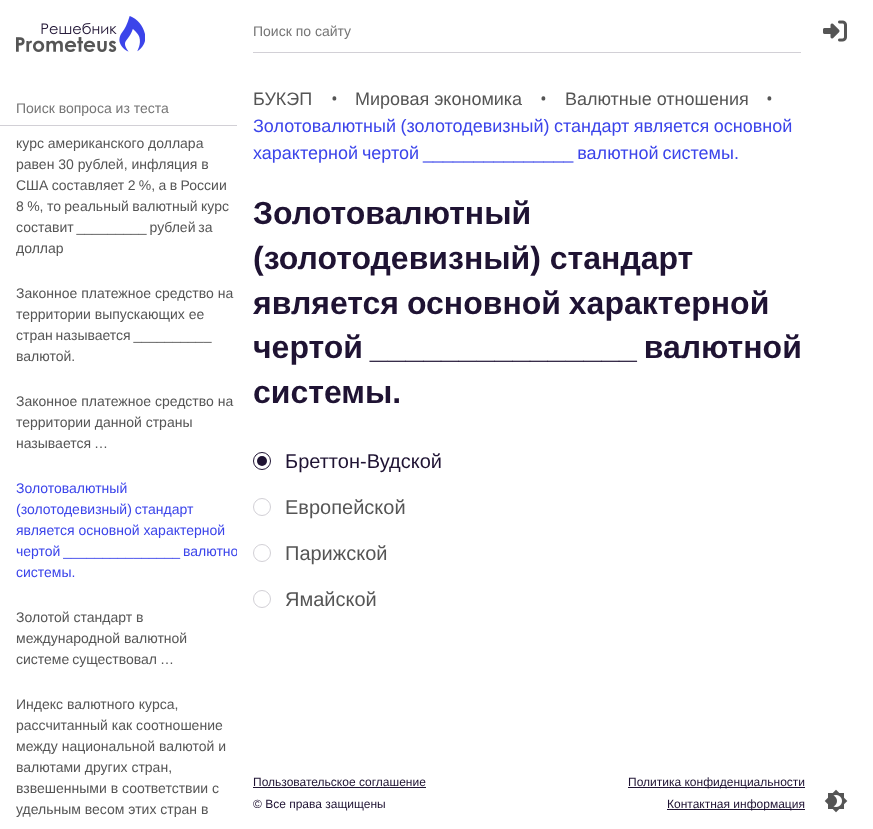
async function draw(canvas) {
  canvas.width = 873
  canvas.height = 829
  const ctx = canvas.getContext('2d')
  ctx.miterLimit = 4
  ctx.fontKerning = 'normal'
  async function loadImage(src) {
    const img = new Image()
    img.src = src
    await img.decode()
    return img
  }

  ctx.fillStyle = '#fff'
  ctx.fillRect(0, 0, 873, 829)
  ctx.drawImage(await loadImage('image0.png'), 16, 16, 129, 36)
  ctx.drawImage(await loadImage('image1.png'), 823, 20, 24, 22)
  ctx.fillStyle = '#d2d0d6'
  ctx.fillRect(0, 125, 237, 1)
  ctx.font = '14px Liberation Sans'
  ctx.fillStyle = '#757575'
  ctx.fillText('Поиск вопроса из теста', 16, 113)
  ctx.fillStyle = '#555'
  ctx.fillText('курс американского доллара', 16, 148)
  ctx.fillText('равен 30 рублей, инфляция в', 16, 169)
  ctx.wordSpacing = '-0.5px'
  ctx.fillText('США составляет 2 %, а в России', 16, 190)
  ctx.fillText('8 %, то реальный валютный курс', 16, 211)
  ctx.wordSpacing = '-1px'
  ctx.fillText('составит _________ рублей за', 16, 232)
  ctx.wordSpacing = '0px'
  ctx.fillText('доллар', 16, 253)
  ctx.fillText('Законное платежное средство на', 16, 298)
  ctx.fillText('территории выпускающих ее', 16, 319)
  ctx.wordSpacing = '-1px'
  ctx.fillText('стран называется __________', 16, 340)
  ctx.wordSpacing = '0px'
  ctx.fillText('валютой.', 16, 361)
  ctx.fillText('Законное платежное средство на', 16, 406)
  ctx.fillText('территории данной страны', 16, 427)
  ctx.wordSpacing = '-1px'
  ctx.fillText('называется …', 16, 448)
  ctx.wordSpacing = '0px'
  ctx.fillStyle = '#3b44ea'
  ctx.fillText('Золотовалютный', 16, 493)
  ctx.wordSpacing = '-1px'
  ctx.fillText('(золотодевизный) стандарт', 16, 514)
  ctx.wordSpacing = '0px'
  ctx.fillText('является основной характерной', 16, 535)
  ctx.save()
  ctx.beginPath()
  ctx.rect(0, 126, 237, 703)
  ctx.clip()
  ctx.wordSpacing = '-1px'
  ctx.fillText('чертой _______________ валютно', 16, 556)
  ctx.restore()
  ctx.fillText('системы.', 16, 577)
  ctx.fillStyle = '#555'
  ctx.fillText('Золотой стандарт в', 16, 622)
  ctx.fillText('международной валютной', 16, 643)
  ctx.wordSpacing = '-1px'
  ctx.fillText('системе существовал …', 16, 664)
  ctx.wordSpacing = '0px'
  ctx.fillText('Индекс валютного курса,', 16, 709)
  ctx.fillText('рассчитанный как соотношение', 16, 730)
  ctx.fillText('между национальной валютой и', 16, 751)
  ctx.fillText('валютами других стран,', 16, 772)
  ctx.fillText('взвешенными в соответствии с', 16, 793)
  ctx.fillText('удельным весом этих стран в', 16, 814)
  ctx.fillStyle = '#d2d0d6'
  ctx.fillRect(253, 52, 548, 1)
  ctx.fillStyle = '#757575'
  ctx.fillText('Поиск по сайту', 253, 36)
  ctx.font = '18px Liberation Sans'
  ctx.fillStyle = '#555'
  ctx.fillText('БУКЭП', 253, 105)
  ctx.font = '18px Open Sans'
  ctx.fillText('•', 331, 105)
  ctx.font = '18px Liberation Sans'
  ctx.fillText('Мировая экономика', 355, 105)
  ctx.font = '18px Open Sans'
  ctx.fillText('•', 540, 105)
  ctx.font = '18px Liberation Sans'
  ctx.fillText('Валютные отношения', 565, 105)
  ctx.font = '18px Open Sans'
  ctx.fillText('•', 766, 105)
  ctx.wordSpacing = '-0.5px'
  ctx.font = '18px Liberation Sans'
  ctx.fillStyle = '#3b44ea'
  ctx.fillText('Золотовалютный (золотодевизный) стандарт является основной', 253, 132)
  ctx.wordSpacing = '-1px'
  ctx.fillText('характерной чертой _______________ валютной системы.', 253, 159)
  ctx.wordSpacing = '0px'
  ctx.font = 'bold 32px Liberation Sans'
  ctx.fillStyle = '#1f1333'
  ctx.fillText('Золотовалютный', 253, 224)
  ctx.fillText('(золотодевизный) стандарт', 253, 269)
  ctx.wordSpacing = '-1px'
  ctx.fillText('является основной характерной', 253, 314)
  ctx.wordSpacing = '-2px'
  ctx.fillText('чертой _______________ валютной', 253, 358)
  ctx.wordSpacing = '0px'
  ctx.fillText('системы.', 253, 403)
  ctx.beginPath()
  ctx.arc(262, 461, 8.5, 0, 2 * Math.PI)
  ctx.strokeStyle = '#1f1333'
  ctx.stroke()
  ctx.beginPath()
  ctx.arc(262, 461, 5, 0, 2 * Math.PI)
  ctx.fill()
  ctx.font = '20px Liberation Sans'
  ctx.fillText('Бреттон-Вудской', 285, 468)
  ctx.beginPath()
  ctx.arc(262, 507, 8.5, 0, 2 * Math.PI)
  ctx.strokeStyle = '#d2d0d6'
  ctx.stroke()
  ctx.fillStyle = '#555'
  ctx.fillText('Европейской', 285, 514)
  ctx.beginPath()
  ctx.arc(262, 553, 8.5, 0, 2 * Math.PI)
  ctx.stroke()
  ctx.fillText('Парижской', 285, 560)
  ctx.beginPath()
  ctx.arc(262, 599, 8.5, 0, 2 * Math.PI)
  ctx.stroke()
  ctx.fillText('Ямайской', 285, 606)
  ctx.font = '12px Liberation Sans'
  ctx.fillStyle = '#1f1333'
  ctx.fillText('Пользовательское соглашение', 253, 786)
  ctx.fillRect(253, 787, 173, 1)
  ctx.fillRect(628, 787, 177, 1)
  ctx.fillText('Политика конфиденциальности', 628, 786)
  ctx.fillText('© Все права защищены', 253, 808)
  ctx.fillRect(667, 809, 138, 1)
  ctx.fillText('Контактная информация', 667, 808)
  ctx.drawImage(await loadImage('image2.png'), 824, 789, 24, 24)
}

draw(document.querySelector('canvas'))
